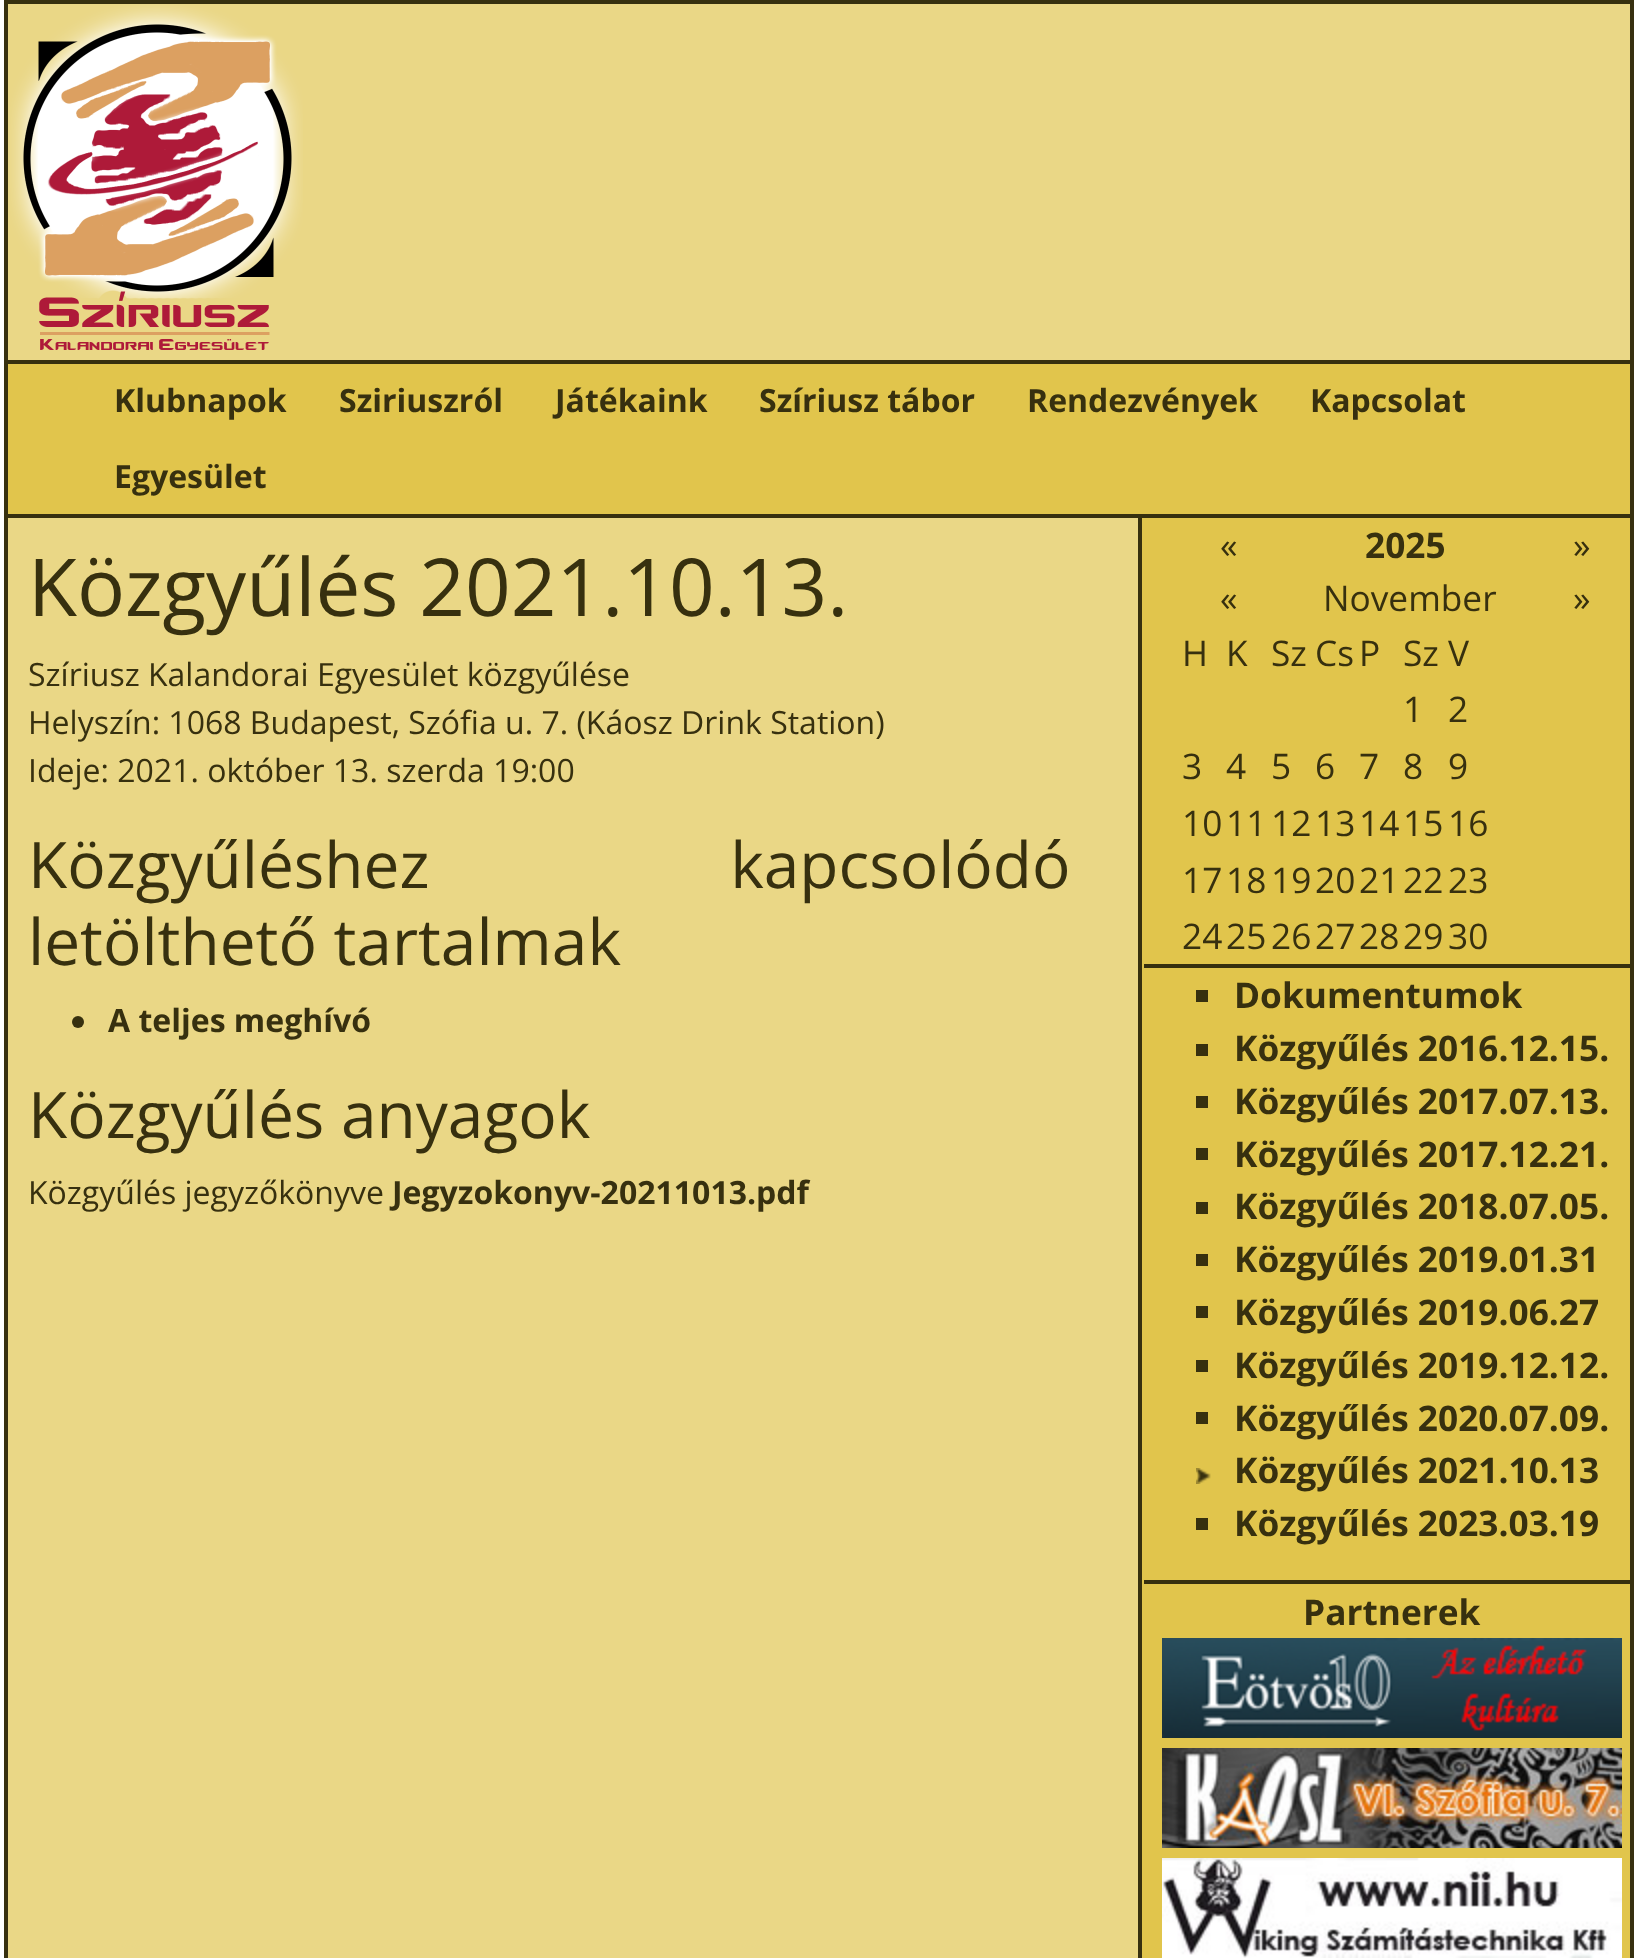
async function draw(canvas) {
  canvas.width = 1638
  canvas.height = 1958
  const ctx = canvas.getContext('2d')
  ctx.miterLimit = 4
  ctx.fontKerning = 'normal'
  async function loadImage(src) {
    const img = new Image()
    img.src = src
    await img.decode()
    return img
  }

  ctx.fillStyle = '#fff'
  ctx.fillRect(0, 0, 1638, 1958)
  ctx.fillStyle = '#ead786'
  ctx.beginPath()
  ctx.rect(6, 2, 1626, 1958)
  ctx.fill()
  ctx.strokeStyle = '#37300f'
  ctx.lineWidth = 4
  ctx.stroke()
  ctx.fillStyle = '#37300f'
  ctx.fillRect(8, 360, 1622, 4)
  ctx.drawImage(await loadImage('image0.png'), 9, 4, 294, 346)
  ctx.fillStyle = '#e1c54c'
  ctx.fillRect(8, 364, 1622, 150)
  ctx.fillStyle = '#37300f'
  ctx.fillRect(8, 514, 1622, 4)
  ctx.font = 'bold 32px Open Sans'
  ctx.fillText('Klubnapok', 114, 412)
  ctx.fillText('Sziriuszról', 339, 412)
  ctx.fillText('Játékaink', 555, 412)
  ctx.fillText('Szíriusz tábor', 759, 412)
  ctx.fillText('Rendezvények', 1027, 412)
  ctx.fillText('Kapcsolat', 1310, 412)
  ctx.fillText('Egyesület', 114, 488)
  ctx.font = '80px Open Sans'
  ctx.fillText('Közgyűlés 2021.10.13.', 28, 616)
  ctx.font = '32px Open Sans'
  ctx.fillText('Szíriusz Kalandorai Egyesület közgyűlése', 28, 686)
  ctx.fillText('Helyszín: 1068 Budapest, Szófia u. 7. (Káosz Drink Station)', 28, 734)
  ctx.fillText('Ideje: 2021. október 13. szerda 19:00', 28, 782)
  ctx.wordSpacing = '284px'
  ctx.font = '64px Open Sans'
  ctx.fillText('Közgyűléshez kapcsolódó', 28, 888)
  ctx.wordSpacing = '0px'
  ctx.fillText('letölthető tartalmak', 28, 965)
  ctx.beginPath()
  ctx.arc(78, 1022, 6, 0, 2 * Math.PI)
  ctx.fill()
  ctx.font = 'bold 32px Open Sans'
  ctx.fillText('A teljes meghívó', 108, 1032)
  ctx.font = '64px Open Sans'
  ctx.fillText('Közgyűlés anyagok', 28, 1138)
  ctx.font = '32px Open Sans'
  ctx.fillText('Közgyűlés jegyzőkönyve', 28, 1204)
  ctx.font = 'bold 32px Open Sans'
  ctx.fillText('Jegyzokonyv-20211013.pdf', 392, 1204)
  ctx.fillStyle = '#e1c54c'
  ctx.fillRect(1142, 518, 488, 1440)
  ctx.fillStyle = '#37300f'
  ctx.fillRect(1138, 518, 4, 1440)
  ctx.font = '35.25px Open Sans'
  ctx.fillText('«', 1220, 558)
  ctx.font = 'bold 35.25px Open Sans'
  ctx.fillText('2025', 1365, 558)
  ctx.font = '35.25px Open Sans'
  ctx.fillText('»', 1573, 558)
  ctx.fillText('«', 1220, 611)
  ctx.fillText('November', 1323, 611)
  ctx.fillText('»', 1573, 611)
  ctx.fillText('H', 1182, 666)
  ctx.fillText('K', 1226, 666)
  ctx.fillText('Sz', 1271, 666)
  ctx.fillText('Cs', 1315, 666)
  ctx.fillText('P', 1359, 666)
  ctx.fillText('Sz', 1403, 666)
  ctx.fillText('V', 1448, 666)
  ctx.fillText('1', 1403, 722)
  ctx.fillText('2', 1448, 722)
  ctx.fillText('3', 1182, 779)
  ctx.fillText('4', 1226, 779)
  ctx.fillText('5', 1271, 779)
  ctx.fillText('6', 1315, 779)
  ctx.fillText('7', 1359, 779)
  ctx.fillText('8', 1403, 779)
  ctx.fillText('9', 1448, 779)
  ctx.fillText('10', 1182, 836)
  ctx.fillText('11', 1226, 836)
  ctx.fillText('12', 1271, 836)
  ctx.fillText('13', 1315, 836)
  ctx.fillText('14', 1359, 836)
  ctx.fillText('15', 1403, 836)
  ctx.fillText('16', 1448, 836)
  ctx.fillText('17', 1182, 893)
  ctx.fillText('18', 1226, 893)
  ctx.fillText('19', 1271, 893)
  ctx.fillText('20', 1315, 893)
  ctx.fillText('21', 1359, 893)
  ctx.fillText('22', 1403, 893)
  ctx.fillText('23', 1448, 893)
  ctx.fillText('24', 1182, 949)
  ctx.fillText('25', 1226, 949)
  ctx.fillText('26', 1271, 949)
  ctx.fillText('27', 1315, 949)
  ctx.fillText('28', 1359, 949)
  ctx.fillText('29', 1403, 949)
  ctx.fillText('30', 1448, 949)
  ctx.fillRect(1144, 964, 486, 4)
  ctx.fillRect(1196, 990, 12, 12)
  ctx.font = 'bold 35.25px Open Sans'
  ctx.fillText('Dokumentumok', 1234, 1008)
  ctx.fillRect(1196, 1044, 12, 12)
  ctx.fillText('Közgyűlés 2016.12.15.', 1234, 1061)
  ctx.fillRect(1196, 1096, 12, 12)
  ctx.fillText('Közgyűlés 2017.07.13.', 1234, 1114)
  ctx.fillRect(1196, 1148, 12, 12)
  ctx.fillText('Közgyűlés 2017.12.21.', 1234, 1167)
  ctx.fillRect(1196, 1202, 12, 12)
  ctx.fillText('Közgyűlés 2018.07.05.', 1234, 1219)
  ctx.fillRect(1196, 1254, 12, 12)
  ctx.fillText('Közgyűlés 2019.01.31', 1234, 1272)
  ctx.fillRect(1196, 1306, 12, 12)
  ctx.fillText('Közgyűlés 2019.06.27', 1234, 1325)
  ctx.fillRect(1196, 1360, 12, 12)
  ctx.fillText('Közgyűlés 2019.12.12.', 1234, 1378)
  ctx.fillRect(1196, 1412, 12, 12)
  ctx.fillText('Közgyűlés 2020.07.09.', 1234, 1431)
  ctx.drawImage(await loadImage('image1.png'), 1196, 1468, 15, 16)
  ctx.fillText('Közgyűlés 2021.10.13', 1234, 1483)
  ctx.fillRect(1196, 1518, 12, 12)
  ctx.fillText('Közgyűlés 2023.03.19', 1234, 1536)
  ctx.fillRect(1144, 1580, 486, 4)
  ctx.fillText('Partnerek', 1303, 1625)
  ctx.drawImage(await loadImage('image2.png'), 1162, 1638, 460, 100)
  ctx.drawImage(await loadImage('image3.png'), 1162, 1748, 460, 100)
  ctx.drawImage(await loadImage('image4.png'), 1162, 1858, 460, 100)
}

draw(document.querySelector('canvas'))
